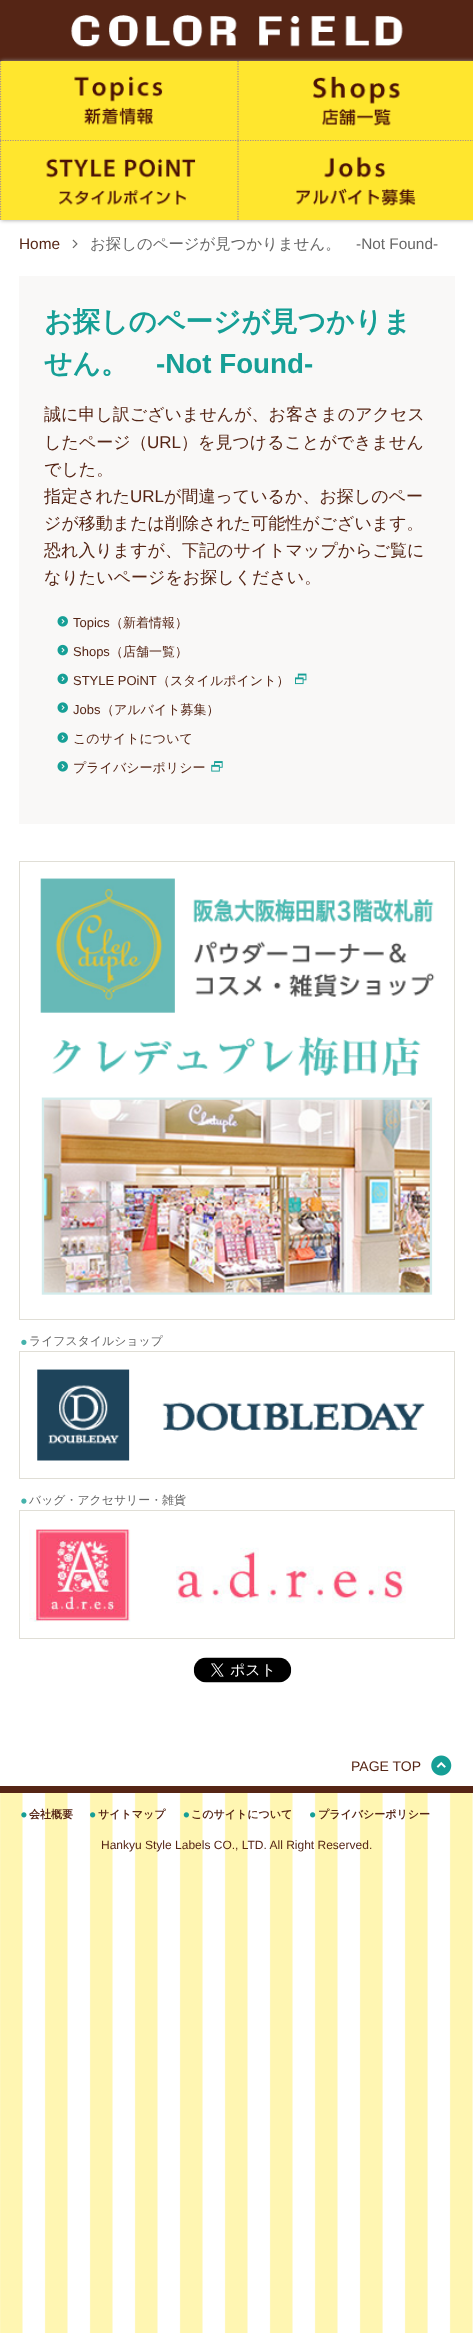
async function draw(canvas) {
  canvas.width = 473
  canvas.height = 2333
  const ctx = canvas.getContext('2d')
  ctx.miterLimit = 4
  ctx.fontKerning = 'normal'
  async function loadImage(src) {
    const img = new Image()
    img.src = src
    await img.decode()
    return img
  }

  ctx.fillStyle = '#fff'
  ctx.fillRect(0, 0, 473, 2333)
  ctx.drawImage(await loadImage('image0.png'), 0, 1870, 473, 463)
  ctx.fillStyle = '#552515'
  ctx.fillRect(0, 0, 473, 61)
  ctx.drawImage(await loadImage('image1.png'), 71, 15, 332, 32)
  ctx.fillStyle = '#999'
  ctx.filter = 'blur(2px)'
  ctx.beginPath()
  ctx.rect(1, 61, 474, 159)
  ctx.fill()
  ctx.filter = 'none'
  ctx.fillStyle = '#ffe62e'
  ctx.fillRect(0, 61, 473, 159)
  ctx.beginPath()
  ctx.moveTo(0, 140.5)
  ctx.lineTo(237.5, 140.5)
  ctx.strokeStyle = '#aa928a'
  ctx.lineWidth = 1.2
  ctx.setLineDash([1.25, 1.25])
  ctx.stroke()
  ctx.beginPath()
  ctx.moveTo(0.5, 61)
  ctx.lineTo(0.5, 141)
  ctx.stroke()
  ctx.drawImage(await loadImage('image2.png'), 74, 76, 89, 49)
  ctx.beginPath()
  ctx.moveTo(237.5, 140.5)
  ctx.lineTo(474, 140.5)
  ctx.stroke()
  ctx.beginPath()
  ctx.moveTo(238, 61)
  ctx.lineTo(238, 141)
  ctx.stroke()
  ctx.drawImage(await loadImage('image3.png'), 313, 76, 87, 50)
  ctx.beginPath()
  ctx.moveTo(0.5, 141)
  ctx.lineTo(0.5, 220)
  ctx.stroke()
  ctx.drawImage(await loadImage('image4.png'), 46, 158, 150, 47)
  ctx.beginPath()
  ctx.moveTo(238, 141)
  ctx.lineTo(238, 220)
  ctx.stroke()
  ctx.drawImage(await loadImage('image5.png'), 296, 156, 120, 50)
  ctx.font = '15.4px Liberation Sans'
  ctx.fillStyle = '#552515'
  ctx.fillText('Home', 19, 249)
  ctx.drawImage(await loadImage('image6.png'), 72, 239, 6, 10)
  ctx.font = '500 15.4px WenQuanYi Zen Hei'
  ctx.fillStyle = '#666'
  ctx.fillText('お探しのページが見つかりません。', 90, 249)
  ctx.font = '15.4px Liberation Sans'
  ctx.fillText('-Not Found-', 356, 249)
  ctx.fillStyle = '#f9f8f7'
  ctx.fillRect(19, 276, 436, 548)
  ctx.font = 'bold 27.75px WenQuanYi Zen Hei'
  ctx.fillStyle = '#169f96'
  ctx.fillText('お探しのページが見つかりま', 44, 331)
  ctx.fillText('せん。', 44, 373)
  ctx.font = 'bold 27.75px Liberation Sans'
  ctx.fillText('-Not Found-', 156, 373)
  ctx.font = '500 17px WenQuanYi Zen Hei'
  ctx.fillStyle = '#552515'
  ctx.fillText('誠に申し訳ございませんが、お客さまのアクセス', 44, 420)
  ctx.fillText('したページ（', 44, 448)
  ctx.font = '17px Liberation Sans'
  ctx.fillText('URL', 147, 448)
  ctx.font = '500 17px WenQuanYi Zen Hei'
  ctx.fillText('）を見つけることができません', 181, 448)
  ctx.fillText('でした。', 44, 475)
  ctx.fillText('指定された', 44, 502)
  ctx.font = '17px Liberation Sans'
  ctx.fillText('URL', 130, 502)
  ctx.font = '500 17px WenQuanYi Zen Hei'
  ctx.fillText('が間違っているか、お探しのペー', 164, 502)
  ctx.fillText('ジが移動または削除された可能性がございます。', 44, 529)
  ctx.fillText('恐れ入りますが、下記のサイトマップからご覧に', 44, 556)
  ctx.fillText('なりたいページをお探しください。', 44, 583)
  ctx.drawImage(await loadImage('image7.png'), 57, 616, 11, 11)
  ctx.font = '13px Liberation Sans'
  ctx.fillText('Topics', 73, 627)
  ctx.font = '500 13px WenQuanYi Zen Hei'
  ctx.fillText('（新着情報）', 110, 627)
  ctx.drawImage(await loadImage('image8.png'), 57, 644, 11, 12)
  ctx.font = '13px Liberation Sans'
  ctx.fillText('Shops', 73, 656)
  ctx.font = '500 13px WenQuanYi Zen Hei'
  ctx.fillText('（店舗一覧）', 110, 656)
  ctx.drawImage(await loadImage('image9.png'), 57, 673, 11, 12)
  ctx.font = '13px Liberation Sans'
  ctx.fillText('STYLE POiNT', 73, 685)
  ctx.font = '500 13px WenQuanYi Zen Hei'
  ctx.fillText('（スタイルポイント）', 157, 685)
  ctx.drawImage(await loadImage('image10.png'), 295, 673, 12, 12)
  ctx.drawImage(await loadImage('image11.png'), 57, 702, 11, 11)
  ctx.font = '13px Liberation Sans'
  ctx.fillText('Jobs', 73, 714)
  ctx.font = '500 13px WenQuanYi Zen Hei'
  ctx.fillText('（アルバイト募集）', 101, 714)
  ctx.drawImage(await loadImage('image11.png'), 57, 732, 11, 11)
  ctx.fillText('このサイトについて', 73, 743)
  ctx.drawImage(await loadImage('image7.png'), 57, 761, 11, 11)
  ctx.fillText('プライバシーポリシー', 73, 772)
  ctx.drawImage(await loadImage('image12.png'), 211, 761, 12, 11)
  ctx.strokeStyle = '#e0ded6'
  ctx.lineWidth = 1
  ctx.setLineDash([])
  ctx.strokeRect(19.5, 861.5, 435, 458)
  ctx.drawImage(await loadImage('image13.png'), 40, 878, 395, 417)
  ctx.drawImage(await loadImage('image14.png'), 21, 1339, 6, 6)
  ctx.font = '500 11.9px WenQuanYi Zen Hei'
  ctx.fillStyle = '#666'
  ctx.fillText('ライフスタイルショップ', 29, 1345)
  ctx.strokeRect(19.5, 1351.5, 435, 127)
  ctx.drawImage(await loadImage('image15.png'), 37, 1369, 389, 92)
  ctx.drawImage(await loadImage('image16.png'), 21, 1498, 6, 6)
  ctx.fillText('バッグ・アクセサリー・雑貨', 29, 1504)
  ctx.strokeRect(19.5, 1510.5, 435, 128)
  ctx.drawImage(await loadImage('image17.png'), 29, 1529, 377, 93)
  ctx.drawImage(await loadImage('image18.png'), 193, 1657, 99, 26)
  ctx.font = '14px Liberation Sans'
  ctx.fillStyle = '#552515'
  ctx.fillText('PAGE TOP', 351, 1771)
  ctx.drawImage(await loadImage('image19.png'), 431, 1755, 21, 21)
  ctx.drawImage(await loadImage('image20.png'), 0, 1793, 473, 77)
  ctx.fillRect(0, 1786, 473, 7)
  ctx.drawImage(await loadImage('image21.png'), 21, 1812, 6, 6)
  ctx.font = 'bold 11px WenQuanYi Zen Hei'
  ctx.fillText('会社概要', 29, 1818)
  ctx.drawImage(await loadImage('image22.png'), 90, 1812, 6, 6)
  ctx.fillText('サイトマップ', 98, 1818)
  ctx.drawImage(await loadImage('image23.png'), 183, 1812, 6, 6)
  ctx.fillText('このサイトについて', 191, 1818)
  ctx.drawImage(await loadImage('image24.png'), 310, 1812, 6, 6)
  ctx.fillText('プライバシーポリシー', 318, 1818)
  ctx.font = '12px Liberation Sans'
  ctx.fillText('Hankyu Style Labels CO., LTD. All Right Reserved.', 101, 1849)
}

draw(document.querySelector('canvas'))
